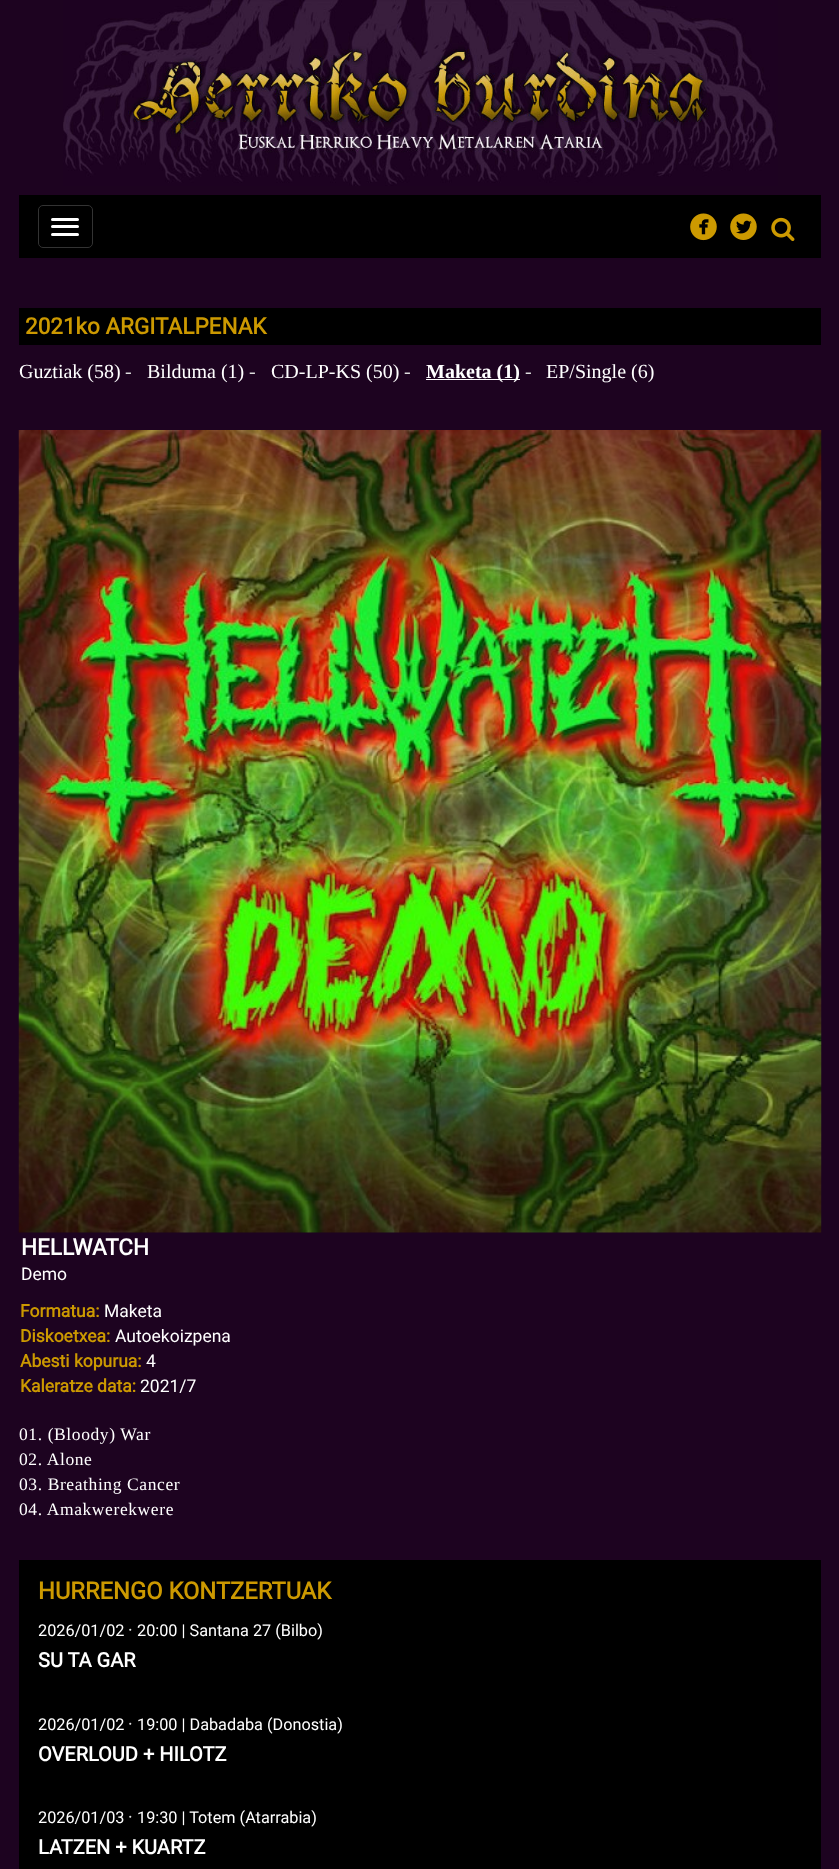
async function draw(canvas) {
  canvas.width = 839
  canvas.height = 1869
  const ctx = canvas.getContext('2d')
  ctx.miterLimit = 4
  ctx.fontKerning = 'normal'
  async function loadImage(src) {
    const img = new Image()
    img.src = src
    await img.decode()
    return img
  }

  ctx.fillStyle = '#1d0320'
  ctx.fillRect(0, 0, 839, 1869)
  ctx.drawImage(await loadImage('image0.png'), 63, 0, 715, 186)
  ctx.fillStyle = '#000'
  ctx.fillRect(19, 195, 802, 63)
  ctx.beginPath()
  ctx.roundRect(38.5, 205.5, 54, 42, 4.5)
  ctx.strokeStyle = '#333'
  ctx.stroke()
  ctx.fillStyle = '#fff'
  ctx.beginPath()
  ctx.roundRect(51, 218, 28, 3, 1.5)
  ctx.fill()
  ctx.beginPath()
  ctx.roundRect(51, 225, 28, 3, 1.5)
  ctx.fill()
  ctx.beginPath()
  ctx.roundRect(51, 233, 28, 3, 1.5)
  ctx.fill()
  ctx.drawImage(await loadImage('image1.png'), 690, 213, 27, 28)
  ctx.drawImage(await loadImage('image2.png'), 730, 213, 27, 27)
  ctx.drawImage(await loadImage('image3.png'), 771, 217, 24, 25)
  ctx.fillStyle = '#000'
  ctx.fillRect(19, 308, 802, 37)
  ctx.font = 'bold 22.5px Roboto'
  ctx.fillStyle = '#c90'
  ctx.fillText('2021ko ARGITALPENAK', 25, 334)
  ctx.font = '20px Liberation Serif'
  ctx.fillStyle = '#fff'
  ctx.fillText('Guztiak (58)', 19, 378)
  ctx.fillStyle = '#dcdcdc'
  ctx.fillText('-', 125, 378)
  ctx.fillStyle = '#fff'
  ctx.fillText('Bilduma (1)', 147, 378)
  ctx.fillStyle = '#dcdcdc'
  ctx.fillText('-', 249, 378)
  ctx.fillStyle = '#fff'
  ctx.fillText('CD-LP-KS (50)', 271, 378)
  ctx.fillStyle = '#dcdcdc'
  ctx.fillText('-', 404, 378)
  ctx.fillStyle = '#fff'
  ctx.fillRect(426, 379, 94, 1)
  ctx.font = 'bold 20px Liberation Serif'
  ctx.fillText('Maketa (1)', 426, 378)
  ctx.font = '20px Liberation Serif'
  ctx.fillStyle = '#dcdcdc'
  ctx.fillText('-', 525, 378)
  ctx.fillStyle = '#fff'
  ctx.fillText('EP/Single (6)', 546, 378)
  ctx.drawImage(await loadImage('image4.png'), 18, 430, 804, 803)
  ctx.font = 'bold 22.5px Roboto'
  ctx.fillText('HELLWATCH', 21, 1255)
  ctx.font = '17.5px Roboto'
  ctx.fillText('Demo', 21, 1280)
  ctx.font = 'bold 17.5px Roboto'
  ctx.fillStyle = '#c90'
  ctx.fillText('Formatua:', 20, 1317)
  ctx.font = '17.5px Roboto'
  ctx.fillStyle = '#fff'
  ctx.fillText('Maketa', 104, 1317)
  ctx.font = 'bold 17.5px Roboto'
  ctx.fillStyle = '#c90'
  ctx.fillText('Diskoetxea:', 20, 1342)
  ctx.font = '17.5px Roboto'
  ctx.fillStyle = '#fff'
  ctx.fillText('Autoekoizpena', 115, 1342)
  ctx.font = 'bold 17.5px Roboto'
  ctx.fillStyle = '#c90'
  ctx.fillText('Abesti kopurua:', 20, 1367)
  ctx.font = '17.5px Roboto'
  ctx.fillStyle = '#fff'
  ctx.fillText('4', 146, 1367)
  ctx.font = 'bold 17.5px Roboto'
  ctx.fillStyle = '#c90'
  ctx.fillText('Kaleratze data:', 20, 1392)
  ctx.font = '17.5px Roboto'
  ctx.fillStyle = '#fff'
  ctx.fillText('2021/7', 140, 1392)
  ctx.letterSpacing = '0.6px'
  ctx.font = '17.5px Liberation Serif'
  ctx.fillText('01. (Bloody) War', 19, 1440)
  ctx.fillText('02. Alone', 19, 1465)
  ctx.fillText('03. Breathing Cancer', 19, 1490)
  ctx.fillText('04. Amakwerekwere', 19, 1515)
  ctx.fillStyle = '#000'
  ctx.fillRect(19, 1560, 802, 309)
  ctx.letterSpacing = '0px'
  ctx.font = 'bold 23.75px Roboto'
  ctx.fillStyle = '#c90'
  ctx.fillText('HURRENGO KONTZERTUAK', 38, 1599)
  ctx.font = '16.25px Roboto'
  ctx.fillStyle = '#fff'
  ctx.fillText('2026/01/02', 38, 1636)
  ctx.font = '17.5px Roboto'
  ctx.fillStyle = '#dcdcdc'
  ctx.fillText('·', 128, 1636)
  ctx.font = '16.25px Roboto'
  ctx.fillStyle = '#fff'
  ctx.fillText('20:00 | Santana 27 (Bilbo)', 137, 1636)
  ctx.font = 'bold 20px Roboto'
  ctx.fillText('SU TA GAR', 38, 1667)
  ctx.font = '16.25px Roboto'
  ctx.fillText('2026/01/02', 38, 1730)
  ctx.font = '17.5px Roboto'
  ctx.fillStyle = '#dcdcdc'
  ctx.fillText('·', 128, 1730)
  ctx.font = '16.25px Roboto'
  ctx.fillStyle = '#fff'
  ctx.fillText('19:00 | Dabadaba (Donostia)', 137, 1730)
  ctx.font = 'bold 20px Roboto'
  ctx.fillText('OVERLOUD + HILOTZ', 38, 1761)
  ctx.font = '16.25px Roboto'
  ctx.fillText('2026/01/03', 38, 1823)
  ctx.font = '17.5px Roboto'
  ctx.fillStyle = '#dcdcdc'
  ctx.fillText('·', 128, 1823)
  ctx.font = '16.25px Roboto'
  ctx.fillStyle = '#fff'
  ctx.fillText('19:30 | Totem (Atarrabia)', 137, 1823)
  ctx.font = 'bold 20px Roboto'
  ctx.fillText('LATZEN + KUARTZ', 38, 1854)
}

draw(document.querySelector('canvas'))
